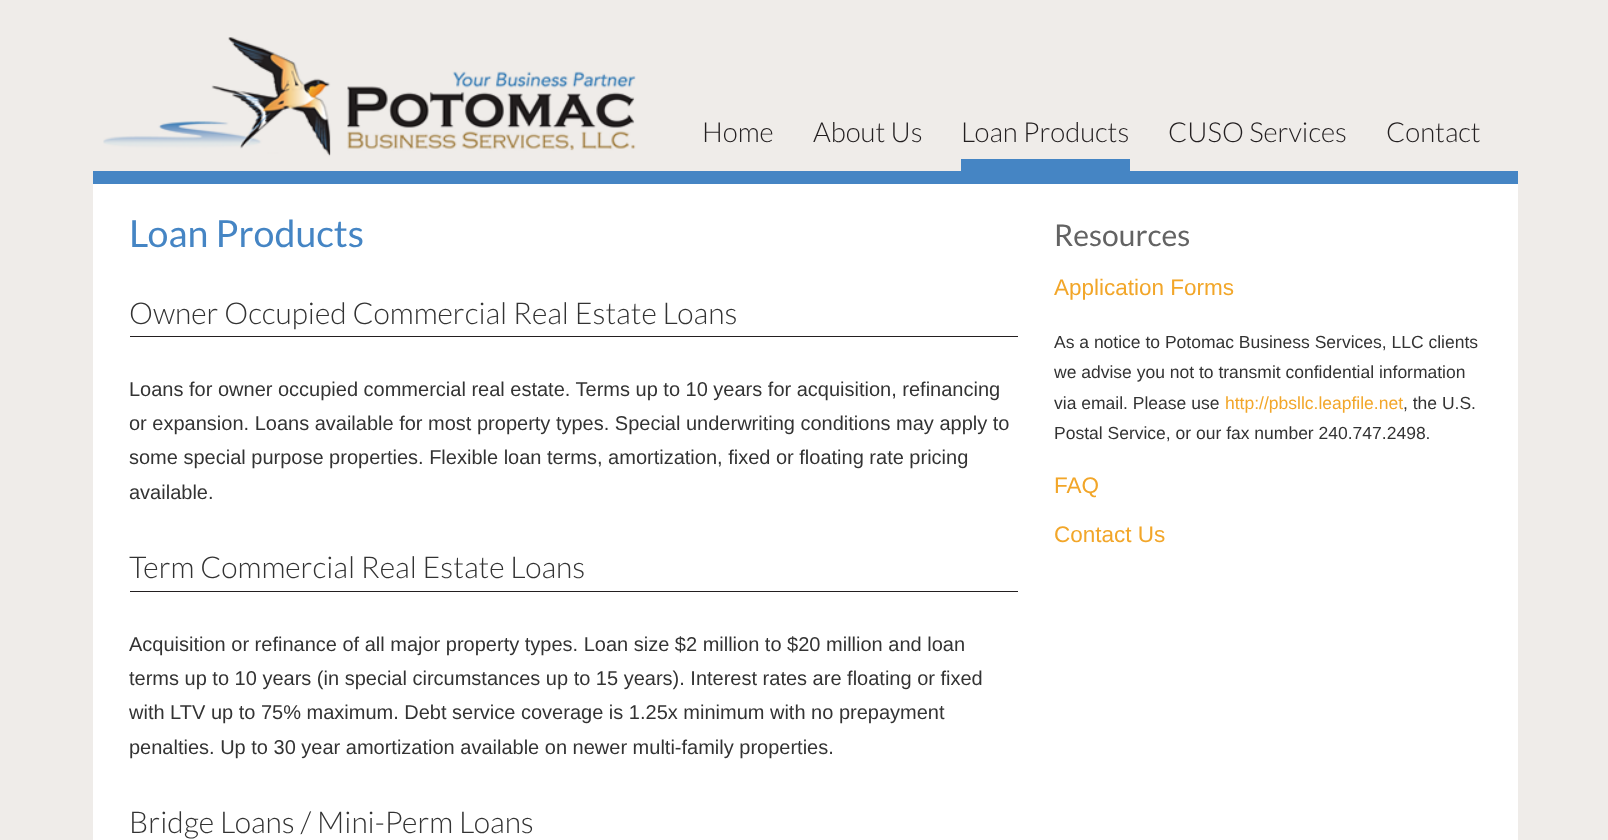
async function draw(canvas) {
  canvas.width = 1608
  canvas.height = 840
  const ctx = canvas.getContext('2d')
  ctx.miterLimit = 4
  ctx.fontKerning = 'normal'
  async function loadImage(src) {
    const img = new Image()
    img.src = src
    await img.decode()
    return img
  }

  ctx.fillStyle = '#efece9'
  ctx.fillRect(0, 0, 1608, 840)
  ctx.drawImage(await loadImage('image0.png'), 103, 37, 533, 120)
  ctx.font = '300 27.5px Lato'
  ctx.fillStyle = '#231f20'
  ctx.fillText('Home', 702, 142)
  ctx.fillText('About Us', 813, 142)
  ctx.fillStyle = '#4585c4'
  ctx.fillRect(961, 159, 169, 12)
  ctx.fillStyle = '#231f20'
  ctx.fillText('Loan Products', 961, 142)
  ctx.fillText('CUSO Services', 1168, 142)
  ctx.fillText('Contact', 1386, 142)
  ctx.fillStyle = '#4585c4'
  ctx.fillRect(93, 171, 1425, 13)
  ctx.fillStyle = '#fff'
  ctx.fillRect(93, 184, 1425, 656)
  ctx.font = '37.5px Lato'
  ctx.fillStyle = '#4585c4'
  ctx.fillText('Loan Products', 129, 247)
  ctx.fillStyle = '#231f20'
  ctx.fillRect(130, 336, 888, 1)
  ctx.font = '300 30px Lato'
  ctx.fillStyle = '#333'
  ctx.fillText('Owner Occupied Commercial Real Estate Loans', 129, 324)
  ctx.font = '20px Liberation Sans'
  ctx.fillText('Loans for owner occupied commercial real estate. Terms up to 10 years for acquisition, refinancing', 129, 396)
  ctx.fillText('or expansion. Loans available for most property types. Special underwriting conditions may apply to', 129, 430)
  ctx.fillText('some special purpose properties. Flexible loan terms, amortization, fixed or floating rate pricing', 129, 464)
  ctx.fillText('available.', 129, 499)
  ctx.fillStyle = '#231f20'
  ctx.fillRect(130, 591, 888, 1)
  ctx.font = '300 30px Lato'
  ctx.fillStyle = '#333'
  ctx.fillText('Term Commercial Real Estate Loans', 129, 578)
  ctx.font = '20px Liberation Sans'
  ctx.fillText('Acquisition or refinance of all major property types. Loan size $2 million to $20 million and loan', 129, 651)
  ctx.fillText('terms up to 10 years (in special circumstances up to 15 years). Interest rates are floating or fixed', 129, 685)
  ctx.fillText('with LTV up to 75% maximum. Debt service coverage is 1.25x minimum with no prepayment', 129, 719)
  ctx.fillText('penalties. Up to 30 year amortization available on newer multi-family properties.', 129, 754)
  ctx.font = '300 30px Lato'
  ctx.fillText('Bridge Loans / Mini-Perm Loans', 129, 833)
  ctx.font = '30px Lato'
  ctx.fillStyle = '#636363'
  ctx.fillText('Resources', 1054, 246)
  ctx.font = '22.5px Liberation Sans'
  ctx.fillStyle = '#f2a629'
  ctx.fillText('Application Forms', 1054, 295)
  ctx.font = '17.5px Liberation Sans'
  ctx.fillStyle = '#333'
  ctx.fillText('As a notice to Potomac Business Services, LLC clients', 1054, 348)
  ctx.fillText('we advise you not to transmit confidential information', 1054, 378)
  ctx.fillText('via email. Please use', 1054, 409)
  ctx.fillStyle = '#f2a629'
  ctx.fillText('http://pbsllc.leapfile.net', 1225, 409)
  ctx.fillStyle = '#333'
  ctx.fillText(', the U.S.', 1403, 409)
  ctx.fillText('Postal Service, or our fax number 240.747.2498.', 1054, 439)
  ctx.font = '22.5px Liberation Sans'
  ctx.fillStyle = '#f2a629'
  ctx.fillText('FAQ', 1054, 493)
  ctx.fillText('Contact Us', 1054, 542)
}

draw(document.querySelector('canvas'))
